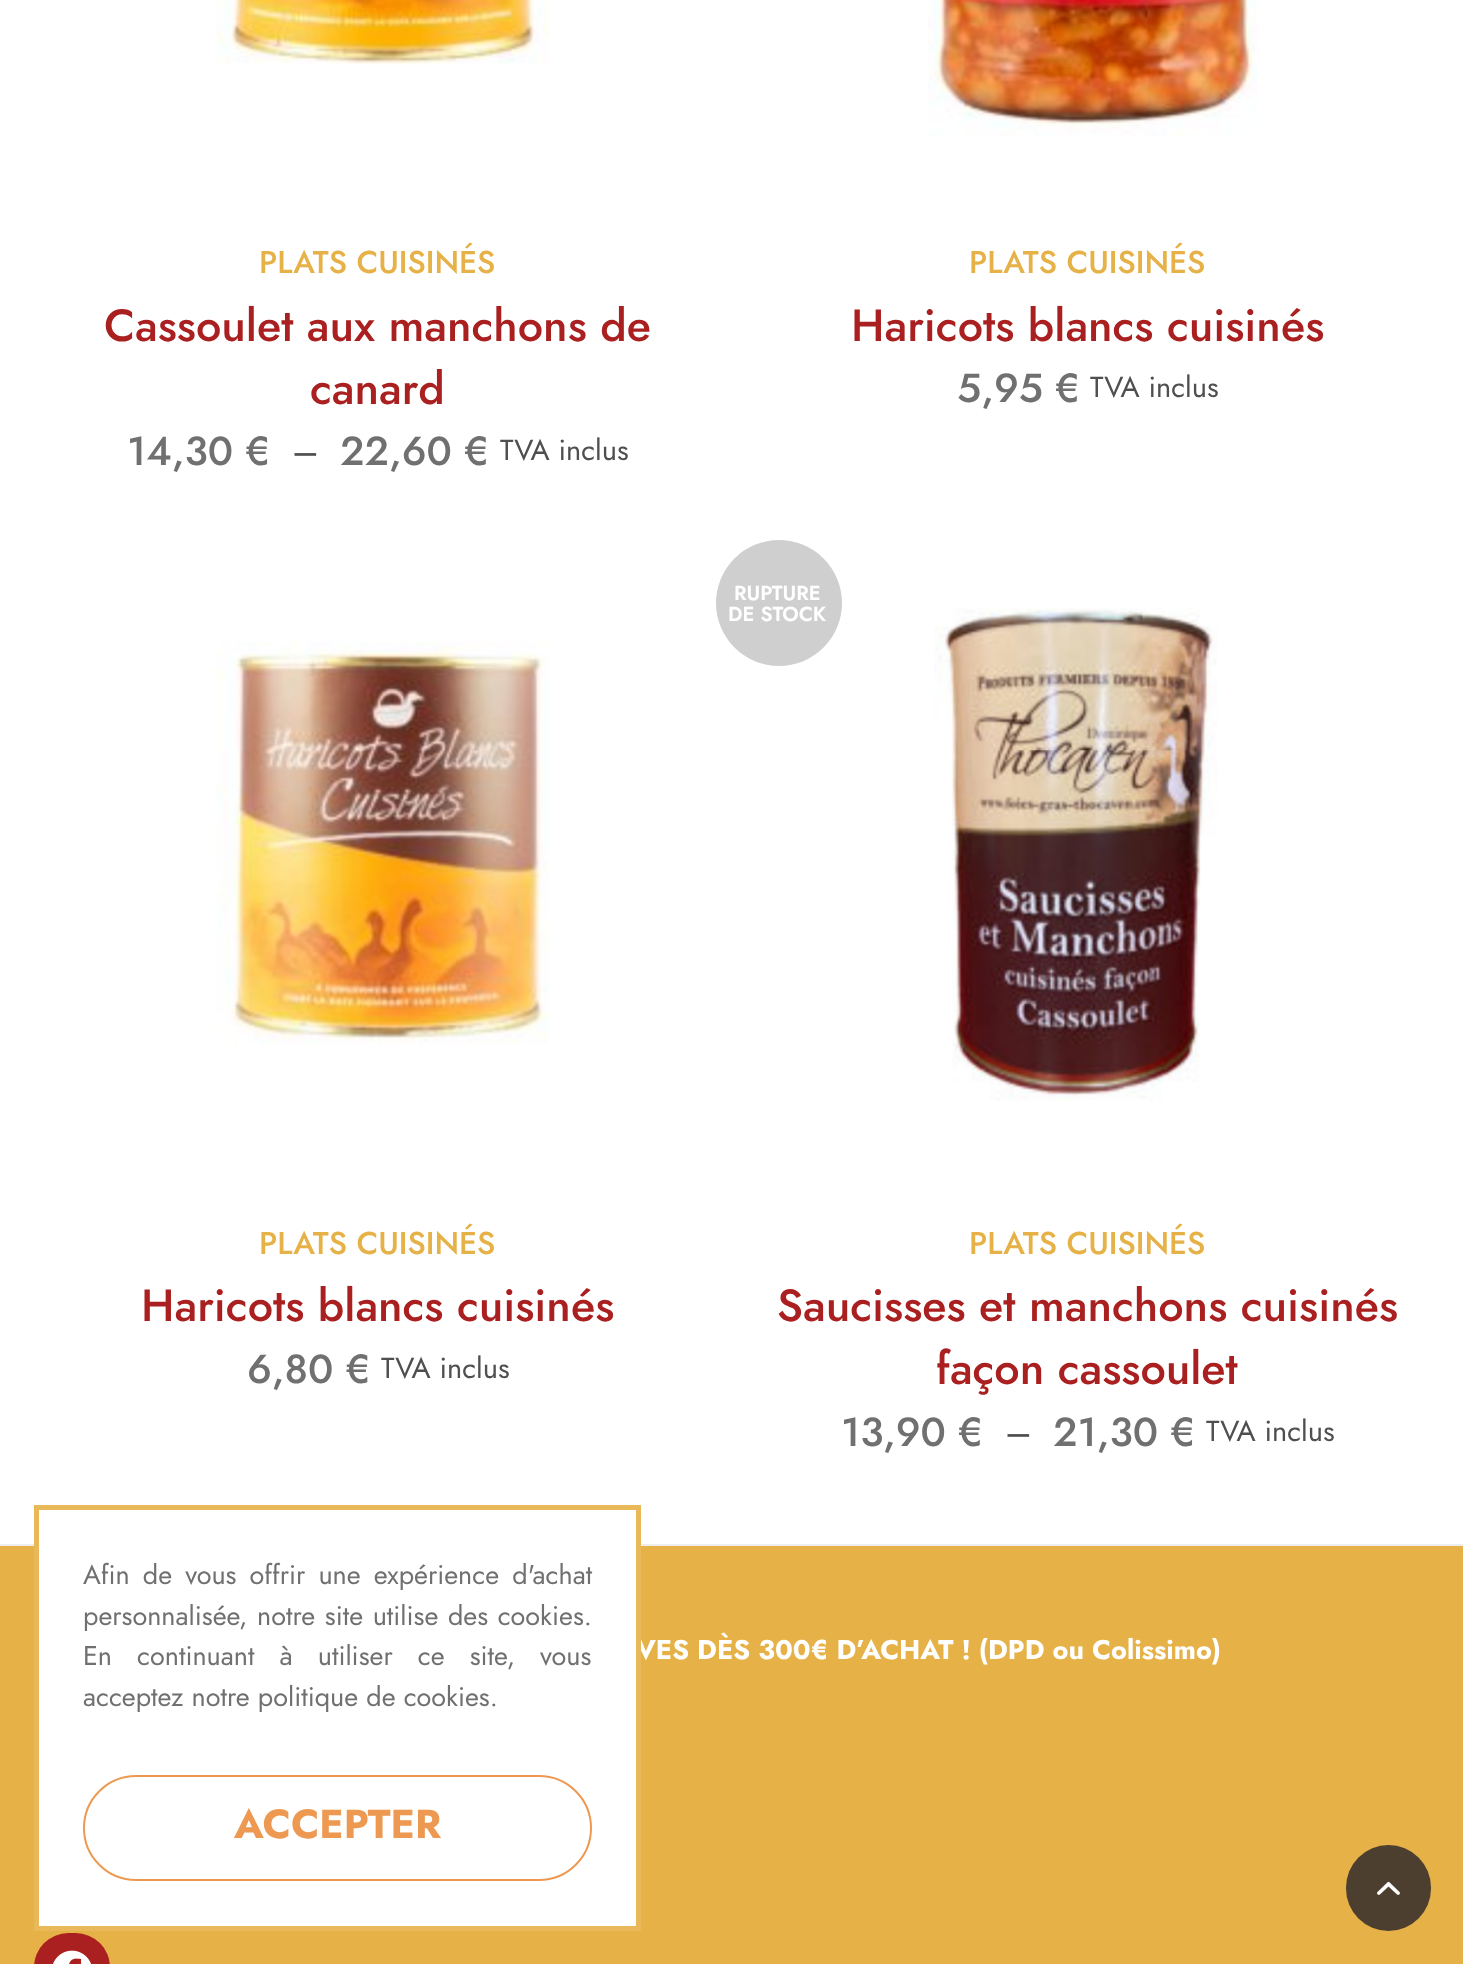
async function draw(canvas) {
  canvas.width = 1463
  canvas.height = 1964
  const ctx = canvas.getContext('2d')
  ctx.miterLimit = 4
  ctx.fontKerning = 'normal'
  async function loadImage(src) {
    const img = new Image()
    img.src = src
    await img.decode()
    return img
  }

  ctx.fillStyle = '#fff'
  ctx.fillRect(0, 0, 1463, 1964)
  ctx.drawImage(await loadImage('image0.png'), 216, 0, 333, 65)
  ctx.font = '500 31.5px Jost'
  ctx.fillStyle = '#e6b147'
  ctx.fillText('PLATS CUISINÉS', 259, 273)
  ctx.font = '500 45px Jost'
  ctx.fillStyle = '#aa1f1f'
  ctx.fillText('Cassoulet aux manchons de', 104, 341)
  ctx.fillText('canard', 310, 404)
  ctx.font = '500 40.5px Jost'
  ctx.fillStyle = '#707070'
  ctx.fillText('14,30 €', 127, 465)
  ctx.font = '36px Jost'
  ctx.fillStyle = '#4f4f4f'
  ctx.fillText('–', 292, 463)
  ctx.font = '500 40.5px Jost'
  ctx.fillStyle = '#707070'
  ctx.fillText('22,60 €', 340, 465)
  ctx.font = '29px Jost'
  ctx.fillStyle = '#4f4f4f'
  ctx.fillText('TVA inclus', 500, 460)
  ctx.drawImage(await loadImage('image1.png'), 928, 0, 330, 136)
  ctx.font = '500 31.5px Jost'
  ctx.fillStyle = '#e6b147'
  ctx.fillText('PLATS CUISINÉS', 969, 273)
  ctx.font = '500 45px Jost'
  ctx.fillStyle = '#aa1f1f'
  ctx.fillText('Haricots blancs cuisinés', 851, 341)
  ctx.font = '500 40.5px Jost'
  ctx.fillStyle = '#707070'
  ctx.fillText('5,95 €', 957, 402)
  ctx.font = '29px Jost'
  ctx.fillStyle = '#4f4f4f'
  ctx.fillText('TVA inclus', 1090, 397)
  ctx.drawImage(await loadImage('image2.png'), 216, 641, 333, 404)
  ctx.font = '500 31.5px Jost'
  ctx.fillStyle = '#e6b147'
  ctx.fillText('PLATS CUISINÉS', 259, 1254)
  ctx.font = '500 45px Jost'
  ctx.fillStyle = '#aa1f1f'
  ctx.fillText('Haricots blancs cuisinés', 141, 1321)
  ctx.font = '500 40.5px Jost'
  ctx.fillStyle = '#707070'
  ctx.fillText('6,80 €', 247, 1383)
  ctx.font = '29px Jost'
  ctx.fillStyle = '#4f4f4f'
  ctx.fillText('TVA inclus', 381, 1378)
  ctx.fillStyle = '#cfcfcf'
  ctx.beginPath()
  ctx.arc(779, 603, 63, 0, 2 * Math.PI)
  ctx.fill()
  ctx.font = '600 20.25px Jost'
  ctx.fillStyle = '#fff'
  ctx.fillText('RUPTURE', 734, 600)
  ctx.fillText('DE STOCK', 728, 621)
  ctx.drawImage(await loadImage('image3.png'), 934, 608, 284, 493)
  ctx.font = '500 31.5px Jost'
  ctx.fillStyle = '#e6b147'
  ctx.fillText('PLATS CUISINÉS', 969, 1254)
  ctx.font = '500 45px Jost'
  ctx.fillStyle = '#aa1f1f'
  ctx.fillText('Saucisses et manchons cuisinés', 777, 1321)
  ctx.fillText('façon cassoulet', 936, 1384)
  ctx.font = '500 40.5px Jost'
  ctx.fillStyle = '#707070'
  ctx.fillText('13,90 €', 841, 1446)
  ctx.font = '36px Jost'
  ctx.fillStyle = '#4f4f4f'
  ctx.fillText('–', 1005, 1444)
  ctx.font = '500 40.5px Jost'
  ctx.fillStyle = '#707070'
  ctx.fillText('21,30 €', 1053, 1446)
  ctx.font = '29px Jost'
  ctx.fillStyle = '#4f4f4f'
  ctx.fillText('TVA inclus', 1206, 1441)
  ctx.fillStyle = '#e6b147'
  ctx.fillRect(0, 1546, 1463, 418)
  ctx.fillStyle = '#eee'
  ctx.fillRect(0, 1544, 1463, 2)
  ctx.drawImage(await loadImage('image4.png'), 33, 1658, 1, 2)
  ctx.font = 'bold 27px Jost'
  ctx.fillStyle = '#fff'
  ctx.fillText('VES DÈS 300€ D’ACHAT ! (DPD ou Colissimo)', 636, 1659)
  ctx.fillStyle = '#aa1f1f'
  ctx.beginPath()
  ctx.roundRect(34, 1933, 76, 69, 38)
  ctx.fill()
  ctx.drawImage(await loadImage('image5.png'), 53, 1950, 38, 14)
  ctx.fillStyle = '#fff'
  ctx.fillRect(39, 1544, 597, 382)
  ctx.strokeStyle = '#e9b959'
  ctx.lineWidth = 5
  ctx.strokeRect(36.5, 1507.5, 602, 421)
  ctx.wordSpacing = '5px'
  ctx.font = '27px Jost'
  ctx.fillStyle = '#707070'
  ctx.fillText('Afin de vous offrir une expérience d\'achat', 83, 1584)
  ctx.wordSpacing = '1.5px'
  ctx.fillText('personnalisée, notre site utilise des cookies.', 83, 1625)
  ctx.wordSpacing = '17px'
  ctx.fillText('En continuant à utiliser ce site, vous', 83, 1665)
  ctx.wordSpacing = '0px'
  ctx.fillText('acceptez notre politique de cookies.', 83, 1706)
  ctx.beginPath()
  ctx.roundRect(84, 1776, 507, 104, 52)
  ctx.strokeStyle = '#ed9951'
  ctx.lineWidth = 2
  ctx.stroke()
  ctx.font = 'bold 40.5px Jost'
  ctx.fillStyle = '#ed9951'
  ctx.fillText('ACCEPTER', 234, 1838)
  ctx.fillStyle = '#4d3f30'
  ctx.beginPath()
  ctx.roundRect(1346, 1845, 85, 86, 42.5)
  ctx.fill()
  ctx.drawImage(await loadImage('image6.png'), 1377, 1881, 23, 14)
}

draw(document.querySelector('canvas'))
